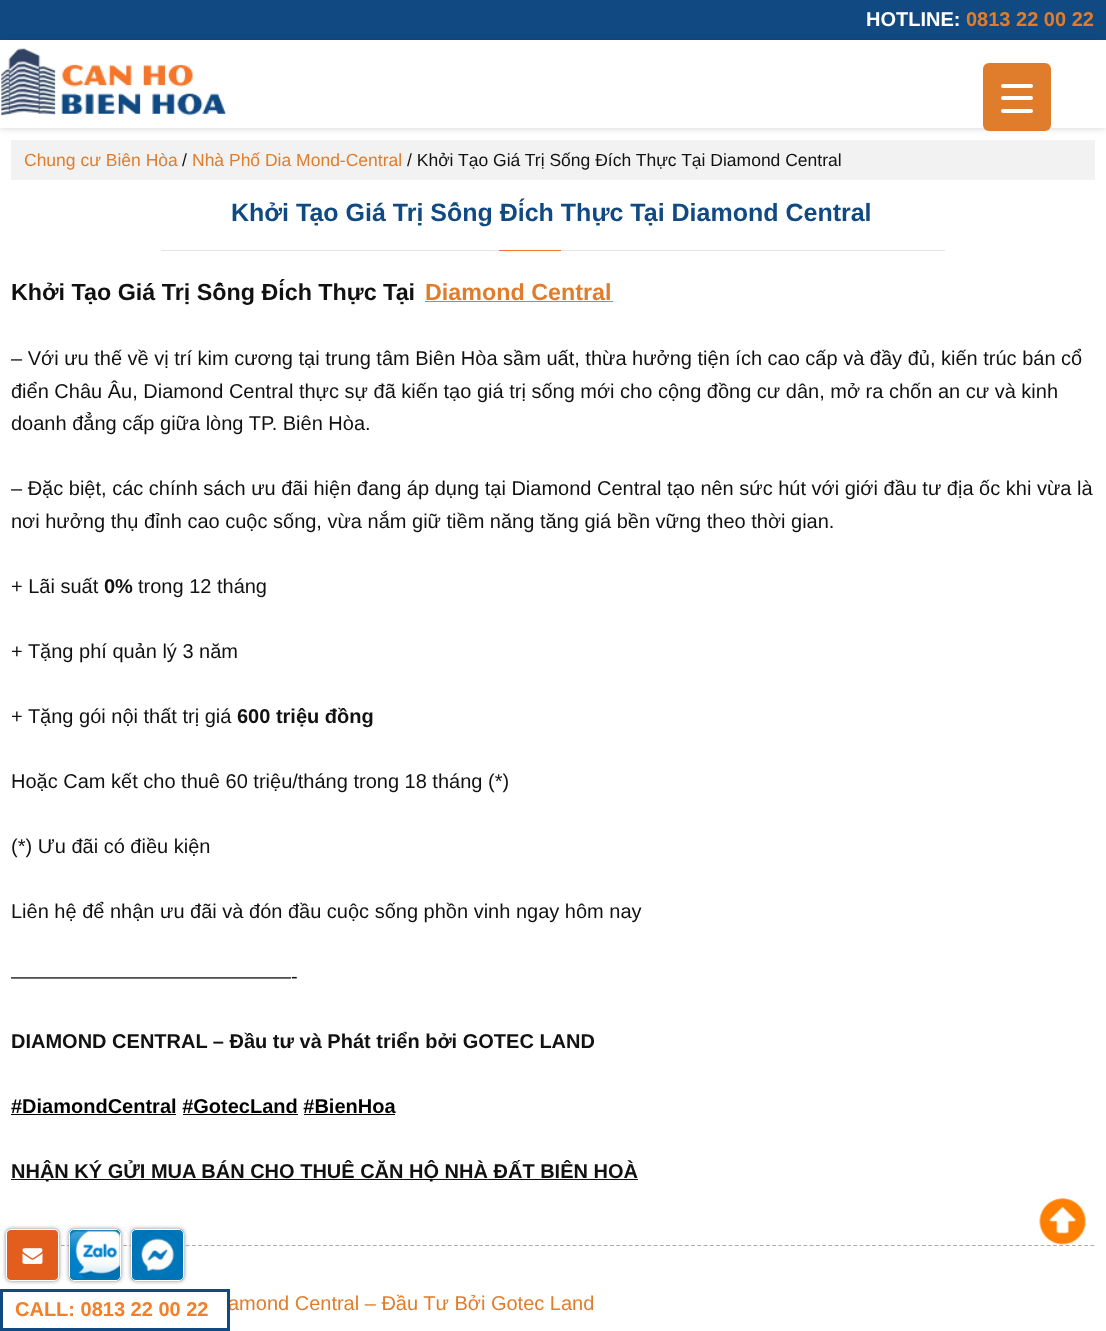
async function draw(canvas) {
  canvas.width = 1106
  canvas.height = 1331
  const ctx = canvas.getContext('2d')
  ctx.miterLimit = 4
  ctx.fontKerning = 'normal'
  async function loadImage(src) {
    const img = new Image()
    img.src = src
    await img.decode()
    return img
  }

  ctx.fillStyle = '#fff'
  ctx.fillRect(0, 0, 1106, 1331)
  ctx.fillStyle = '#114a82'
  ctx.fillRect(0, 0, 1106, 40)
  ctx.font = 'bold 20px Liberation Sans'
  ctx.fillStyle = '#fff'
  ctx.fillText('HOTLINE:', 866, 26)
  ctx.fillStyle = '#e07d2d'
  ctx.fillText('0813 22 00 22', 966, 26)
  ctx.fillStyle = '#00000026'
  ctx.filter = 'blur(3px)'
  ctx.beginPath()
  ctx.rect(0, 41, 1106, 88)
  ctx.fill()
  ctx.filter = 'none'
  ctx.fillStyle = '#fff'
  ctx.fillRect(0, 40, 1106, 88)
  ctx.drawImage(await loadImage('image0.png'), 1, 48, 226, 68)
  ctx.fillStyle = '#e07d2d'
  ctx.beginPath()
  ctx.roundRect(983, 63, 68, 68, 6)
  ctx.fill()
  ctx.fillStyle = '#fff'
  ctx.beginPath()
  ctx.roundRect(1001, 96, 32, 4, 2)
  ctx.fill()
  ctx.beginPath()
  ctx.roundRect(1001, 84, 32, 4, 2)
  ctx.fill()
  ctx.beginPath()
  ctx.roundRect(1001, 109, 32, 4, 2)
  ctx.fill()
  ctx.fillStyle = '#f2f2f2'
  ctx.fillRect(11, 140, 1084, 40)
  ctx.font = '17.5px Liberation Sans'
  ctx.fillStyle = '#e07d2d'
  ctx.fillText('Chung cư Biên Hòa', 24, 166)
  ctx.fillStyle = '#111'
  ctx.fillText('/', 182, 166)
  ctx.fillStyle = '#e07d2d'
  ctx.fillText('Nhà Phố Dia Mond-Central', 192, 166)
  ctx.fillStyle = '#111'
  ctx.fillText('/ Khởi Tạo Giá Trị Sống Đích Thực Tại Diamond Central', 407, 166)
  ctx.fillStyle = '#e5e3e3'
  ctx.fillRect(161, 250, 784, 1)
  ctx.font = 'bold 25px Liberation Sans'
  ctx.fillStyle = '#114a82'
  ctx.fillText('Khởi Tạo Giá Trị Sống Đích Thực Tại Diamond Central', 231, 221)
  ctx.fillStyle = '#f4762a'
  ctx.fillRect(499, 250, 62, 1)
  ctx.beginPath()
  ctx.moveTo(11, 1245.5)
  ctx.lineTo(1095, 1245.5)
  ctx.strokeStyle = '#aaa'
  ctx.lineWidth = 1.2
  ctx.setLineDash([3.75, 2.49])
  ctx.stroke()
  ctx.font = 'bold 23.3px Liberation Sans'
  ctx.fillStyle = '#111'
  ctx.fillText('Khởi Tạo Giá Trị Sống Đích Thực Tại', 11, 300)
  ctx.fillStyle = '#e07d2d'
  ctx.fillText('Diamond Central', 425, 300)
  ctx.fillRect(425, 301, 188, 1)
  ctx.font = '20px Liberation Sans'
  ctx.fillStyle = '#111'
  ctx.fillText('– Với ưu thế về vị trí kim cương tại trung tâm Biên Hòa sầm uất, thừa hưởng tiện ích cao cấp và đầy đủ, kiến trúc bán cổ', 11, 365)
  ctx.fillText('điển Châu Âu, Diamond Central thực sự đã kiến tạo giá trị sống mới cho cộng đồng cư dân, mở ra chốn an cư và kinh', 11, 398)
  ctx.fillText('doanh đẳng cấp giữa lòng TP. Biên Hòa.', 11, 430)
  ctx.fillText('– Đặc biệt, các chính sách ưu đãi hiện đang áp dụng tại Diamond Central tạo nên sức hút với giới đầu tư địa ốc khi vừa là', 11, 495)
  ctx.fillText('nơi hưởng thụ đỉnh cao cuộc sống, vừa nắm giữ tiềm năng tăng giá bền vững theo thời gian.', 11, 528)
  ctx.fillText('+ Lãi suất', 11, 593)
  ctx.font = 'bold 20px Liberation Sans'
  ctx.fillText('0%', 104, 593)
  ctx.font = '20px Liberation Sans'
  ctx.fillText('trong 12 tháng', 138, 593)
  ctx.fillText('+ Tặng phí quản lý 3 năm', 11, 658)
  ctx.fillText('+ Tặng gói nội thất trị giá', 11, 723)
  ctx.font = 'bold 20px Liberation Sans'
  ctx.fillText('600 triệu đồng', 237, 723)
  ctx.font = '20px Liberation Sans'
  ctx.fillText('Hoặc Cam kết cho thuê 60 triệu/tháng trong 18 tháng (*)', 11, 788)
  ctx.fillText('(*) Ưu đãi có điều kiện', 11, 853)
  ctx.fillText('Liên hệ để nhận ưu đãi và đón đầu cuộc sống phồn vinh ngay hôm nay', 11, 918)
  ctx.fillText('——————————————-', 11, 983)
  ctx.font = 'bold 20px Liberation Sans'
  ctx.fillText('DIAMOND CENTRAL – Đầu tư và Phát triển bởi GOTEC LAND', 11, 1048)
  ctx.fillStyle = '#000'
  ctx.fillText('#DiamondCentral #GotecLand #BienHoa', 11, 1113)
  ctx.fillRect(11, 1114, 165, 1)
  ctx.fillRect(183, 1114, 115, 1)
  ctx.fillRect(304, 1114, 91, 1)
  ctx.fillStyle = '#111'
  ctx.fillRect(11, 1179, 627, 1)
  ctx.fillText('NHẬN KÝ GỬI MUA BÁN CHO THUÊ CĂN HỘ NHÀ ĐẤT BIÊN HOÀ', 11, 1178)
  ctx.font = '20px Liberation Sans'
  ctx.fillStyle = '#e07d2d'
  ctx.fillText('amond Central – Đầu Tư Bởi Gotec Land', 228, 1310)
  ctx.fillStyle = '#888'
  ctx.filter = 'blur(2px)'
  ctx.beginPath()
  ctx.roundRect(6, 1229, 53, 52, 5)
  ctx.fill()
  ctx.filter = 'none'
  ctx.fillStyle = '#e35d1c'
  ctx.beginPath()
  ctx.roundRect(6.5, 1229.5, 52, 51, 4.5)
  ctx.fill()
  ctx.strokeStyle = '#fff'
  ctx.lineWidth = 1
  ctx.setLineDash([])
  ctx.stroke()
  ctx.drawImage(await loadImage('image1.png'), 22, 1248, 21, 16)
  ctx.fillStyle = '#888'
  ctx.filter = 'blur(2px)'
  ctx.beginPath()
  ctx.roundRect(69, 1229, 52, 52, 5)
  ctx.fill()
  ctx.filter = 'none'
  ctx.fillStyle = '#0076ba'
  ctx.beginPath()
  ctx.roundRect(69, 1229, 52, 52, 5)
  ctx.fill()
  ctx.drawImage(await loadImage('image2.png'), 70, 1230, 50, 49)
  ctx.beginPath()
  ctx.roundRect(69.5, 1229.5, 51, 51, 4.5)
  ctx.stroke()
  ctx.fillStyle = '#888'
  ctx.filter = 'blur(2px)'
  ctx.beginPath()
  ctx.roundRect(131, 1229, 53, 52, 5)
  ctx.fill()
  ctx.filter = 'none'
  ctx.fillStyle = '#0076ba'
  ctx.beginPath()
  ctx.roundRect(131, 1229, 53, 52, 5)
  ctx.fill()
  ctx.drawImage(await loadImage('image3.png'), 132, 1230, 51, 50)
  ctx.beginPath()
  ctx.roundRect(131.5, 1229.5, 52, 51, 4.5)
  ctx.stroke()
  ctx.drawImage(await loadImage('image4.png'), 1039, 1198, 47, 47)
  ctx.strokeStyle = '#114a82'
  ctx.lineWidth = 3
  ctx.strokeRect(1.5, 1290.5, 227, 39)
  ctx.font = 'bold 20px Liberation Sans'
  ctx.fillStyle = '#f38029'
  ctx.fillText('CALL: 0813 22 00 22', 15, 1316)
}

draw(document.querySelector('canvas'))
